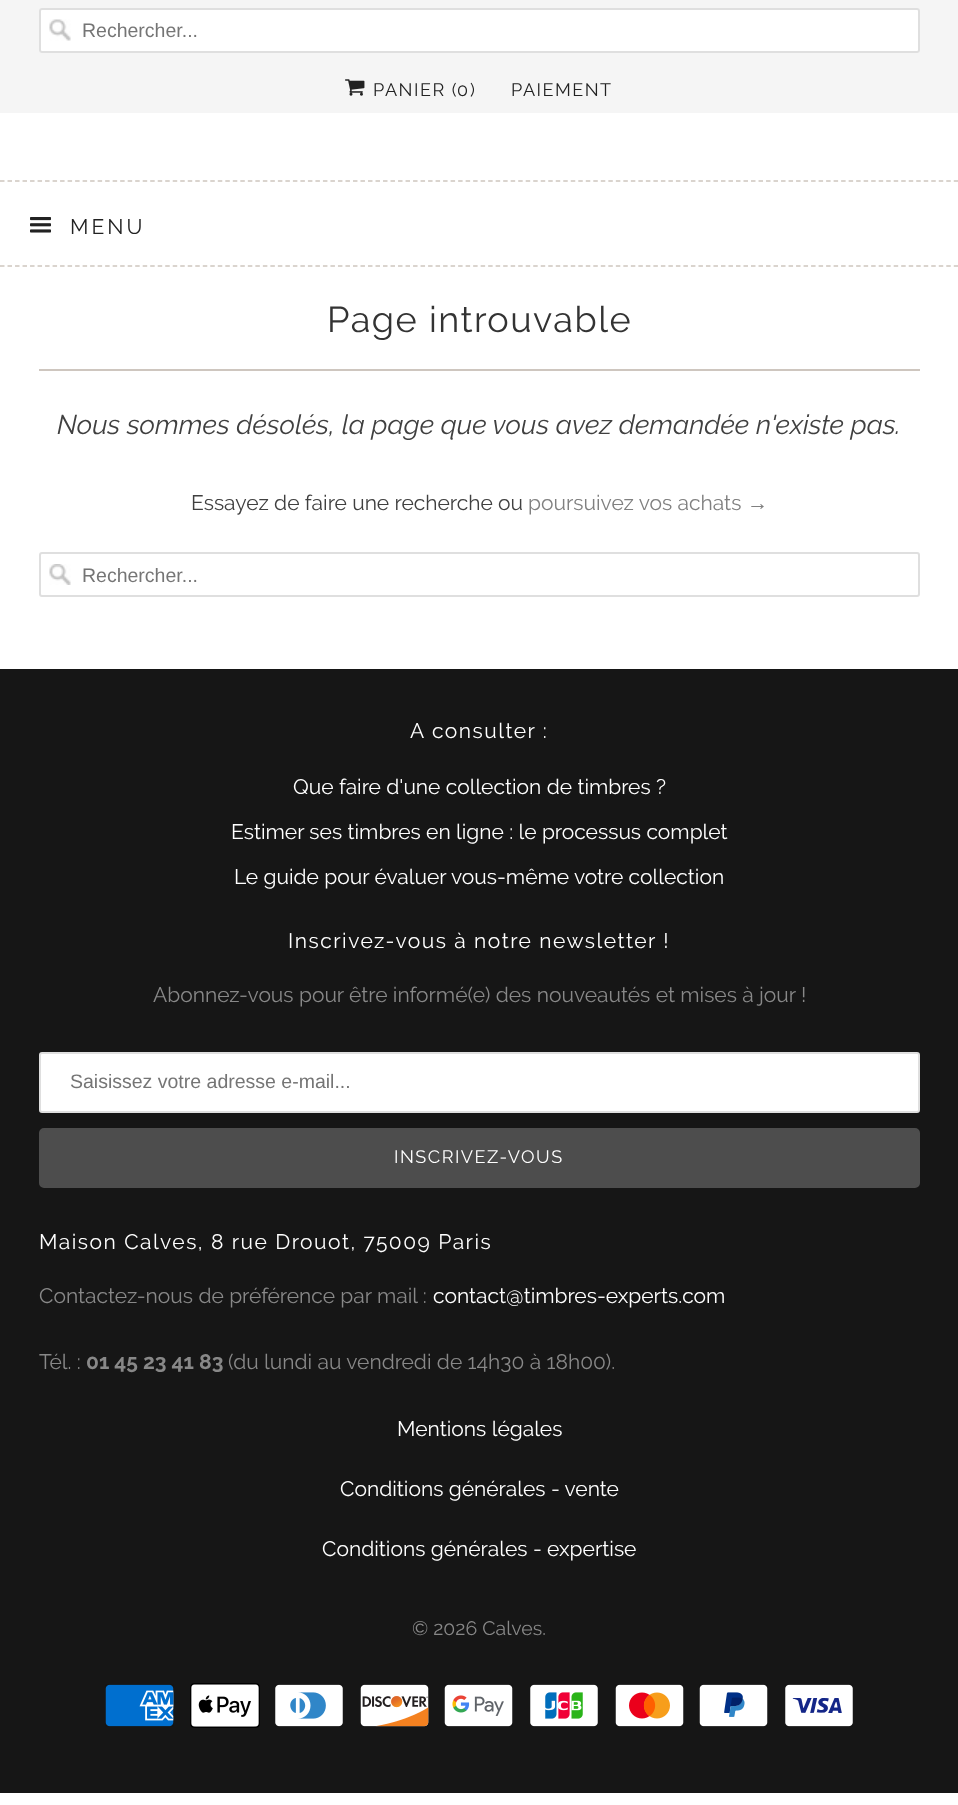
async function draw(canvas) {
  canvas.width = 958
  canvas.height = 1805
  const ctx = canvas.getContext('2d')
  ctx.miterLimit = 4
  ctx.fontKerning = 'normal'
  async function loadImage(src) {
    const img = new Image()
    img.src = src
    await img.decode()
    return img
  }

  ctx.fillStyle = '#fff'
  ctx.fillRect(0, 0, 958, 1805)
  ctx.fillStyle = '#f5f5f5'
  ctx.fillRect(0, 0, 958, 113)
  ctx.fillStyle = '#fff'
  ctx.beginPath()
  ctx.roundRect(39, 8, 881, 45, 3)
  ctx.fill()
  ctx.drawImage(await loadImage('image0.png'), 49, 19, 22, 22)
  ctx.beginPath()
  ctx.roundRect(40, 9, 879, 43, 2)
  ctx.strokeStyle = '#dfdfdf'
  ctx.lineWidth = 2
  ctx.stroke()
  ctx.font = '19.5px Liberation Sans'
  ctx.fillStyle = '#757575'
  ctx.fillText('Rechercher...', 82, 37)
  ctx.drawImage(await loadImage('image1.png'), 345, 79, 20, 17)
  ctx.letterSpacing = '1.5px'
  ctx.font = '18px Raleway'
  ctx.fillStyle = '#222'
  ctx.fillText('PANIER (', 373, 96)
  ctx.fillText('0', 457, 96)
  ctx.fillText(')', 470, 96)
  ctx.fillText('PAIEMENT', 511, 96)
  ctx.beginPath()
  ctx.moveTo(0, 181)
  ctx.lineTo(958.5, 181)
  ctx.strokeStyle = '#cec6bf'
  ctx.lineWidth = 1.5
  ctx.setLineDash([4.5, 3.01])
  ctx.stroke()
  ctx.beginPath()
  ctx.moveTo(0, 266)
  ctx.lineTo(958.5, 266)
  ctx.stroke()
  ctx.drawImage(await loadImage('image2.png'), 30, 217, 21, 16)
  ctx.letterSpacing = '3px'
  ctx.font = '21px Raleway'
  ctx.fillText('MENU', 70, 234)
  ctx.fillStyle = '#cec6bf'
  ctx.fillRect(39, 369, 881, 2)
  ctx.letterSpacing = '1.5px'
  ctx.font = '36px Raleway'
  ctx.fillStyle = '#333'
  ctx.fillText('Page introuvable', 327, 332)
  ctx.letterSpacing = '0px'
  ctx.font = 'italic 27px Raleway'
  ctx.fillStyle = '#404040'
  ctx.fillText('Nous sommes désolés, la page que vous avez demandée n\'existe pas.', 57, 434)
  ctx.font = '21px Raleway'
  ctx.fillText('Essayez de faire une recherche ou', 191, 510)
  ctx.fillStyle = '#808080'
  ctx.fillText('poursuivez vos achats', 528, 510)
  ctx.font = '21px Liberation Sans'
  ctx.fillText('→', 747, 510)
  ctx.drawImage(await loadImage('image3.png'), 49, 564, 22, 21)
  ctx.beginPath()
  ctx.roundRect(40, 553, 879, 43, 2)
  ctx.strokeStyle = '#dfdfdf'
  ctx.lineWidth = 2
  ctx.setLineDash([])
  ctx.stroke()
  ctx.font = '19.5px Liberation Sans'
  ctx.fillStyle = '#757575'
  ctx.fillText('Rechercher...', 82, 582)
  ctx.fillStyle = '#161616'
  ctx.fillRect(0, 669, 958, 1124)
  ctx.letterSpacing = '1.5px'
  ctx.font = '21px Raleway'
  ctx.fillStyle = '#fff'
  ctx.fillText('A consulter :', 410, 738)
  ctx.letterSpacing = '0px'
  ctx.fillText('Que faire d\'une collection de timbres ?', 293, 794)
  ctx.fillText('Estimer ses timbres en ligne : le processus complet', 231, 839)
  ctx.fillText('Le guide pour évaluer vous-même votre collection', 234, 884)
  ctx.letterSpacing = '1.5px'
  ctx.fillText('Inscrivez-vous à notre newsletter !', 288, 948)
  ctx.letterSpacing = '0px'
  ctx.fillStyle = '#888'
  ctx.fillText('Abonnez-vous pour être informé(e) des nouveautés et mises à jour !', 153, 1002)
  ctx.fillStyle = '#fff'
  ctx.beginPath()
  ctx.roundRect(40, 1053, 879, 59, 2)
  ctx.fill()
  ctx.stroke()
  ctx.font = '19.5px Liberation Sans'
  ctx.fillStyle = '#757575'
  ctx.fillText('Saisissez votre adresse e-mail...', 70, 1088)
  ctx.fillStyle = '#4d4d4d'
  ctx.beginPath()
  ctx.roundRect(40, 1129, 879, 58, 4)
  ctx.fill()
  ctx.strokeStyle = '#4d4d4d'
  ctx.stroke()
  ctx.letterSpacing = '1.5px'
  ctx.font = '18px Raleway'
  ctx.fillStyle = '#fff'
  ctx.fillText('INSCRIVEZ-VOUS', 394, 1163)
  ctx.font = '21px Raleway'
  ctx.fillText('Maison Calves, 8 rue Drouot, 75009 Paris', 39, 1249)
  ctx.letterSpacing = '0px'
  ctx.fillStyle = '#888'
  ctx.fillText('Contactez-nous de préférence par mail :', 39, 1303)
  ctx.fillStyle = '#fff'
  ctx.fillText('contact@timbres-experts.com', 433, 1303)
  ctx.fillStyle = '#888'
  ctx.fillText('Tél. :', 39, 1369)
  ctx.font = 'bold 21px Raleway'
  ctx.fillText('01 45 23 41 83', 86, 1369)
  ctx.font = '21px Raleway'
  ctx.fillText('(du lundi au vendredi de 14h30 à 18h00).', 228, 1369)
  ctx.fillStyle = '#fff'
  ctx.fillText('Mentions légales', 397, 1436)
  ctx.fillText('Conditions générales - vente', 340, 1496)
  ctx.fillText('Conditions générales - expertise', 322, 1556)
  ctx.font = '19.5px Raleway'
  ctx.fillStyle = '#888'
  ctx.fillText('© 2026 Calves.', 412, 1635)
  ctx.drawImage(await loadImage('image4.png'), 105, 1684, 69, 43)
  ctx.drawImage(await loadImage('image5.png'), 190, 1683, 70, 45)
  ctx.drawImage(await loadImage('image6.png'), 275, 1684, 68, 43)
  ctx.drawImage(await loadImage('image7.png'), 360, 1684, 69, 43)
  ctx.drawImage(await loadImage('image8.png'), 444, 1684, 69, 43)
  ctx.drawImage(await loadImage('image9.png'), 530, 1684, 68, 43)
  ctx.drawImage(await loadImage('image10.png'), 615, 1684, 69, 43)
  ctx.drawImage(await loadImage('image11.png'), 699, 1684, 69, 43)
  ctx.drawImage(await loadImage('image12.png'), 785, 1684, 68, 43)
}

draw(document.querySelector('canvas'))
